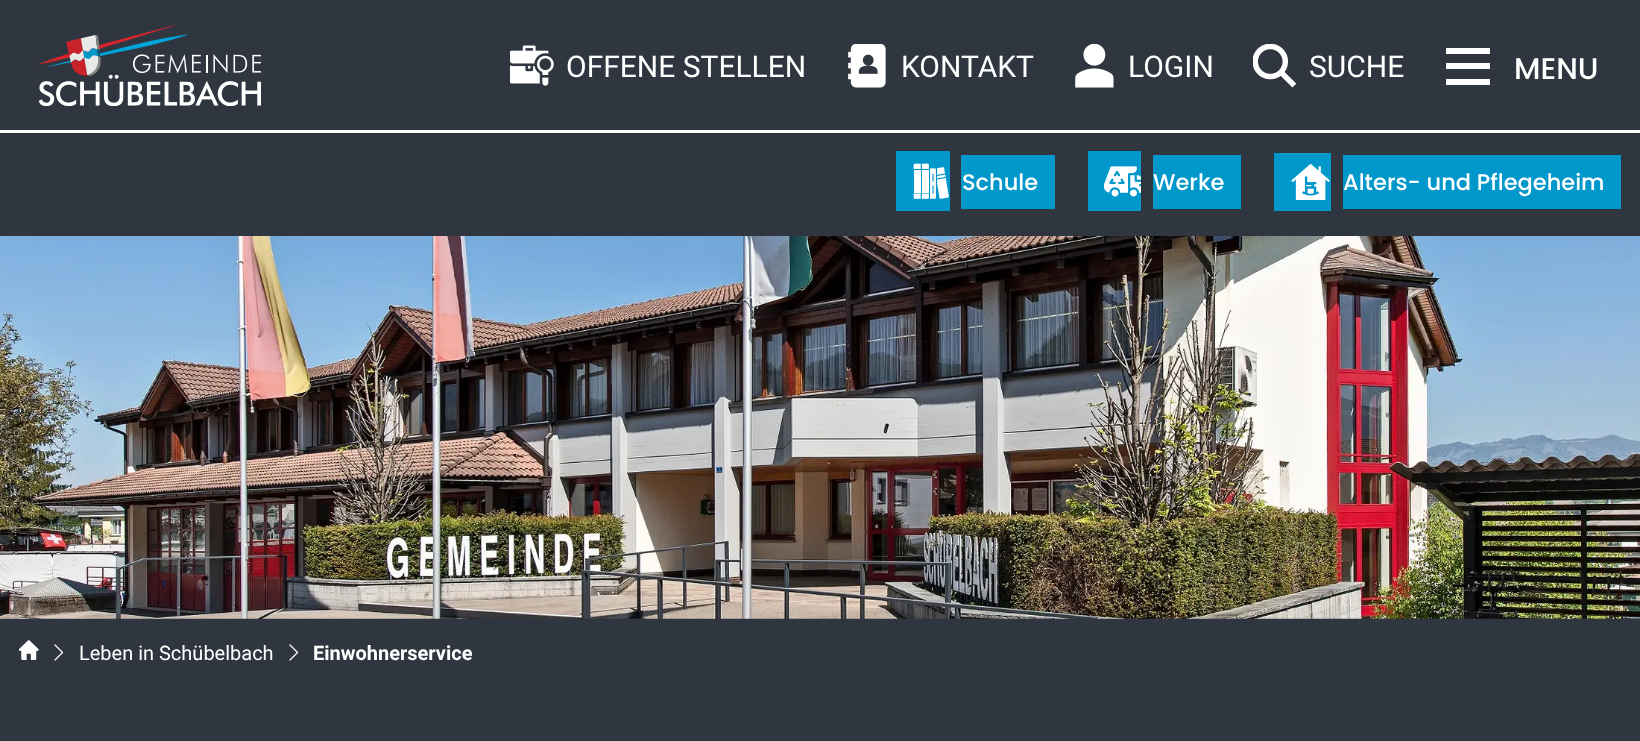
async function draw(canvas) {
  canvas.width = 1640
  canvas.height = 741
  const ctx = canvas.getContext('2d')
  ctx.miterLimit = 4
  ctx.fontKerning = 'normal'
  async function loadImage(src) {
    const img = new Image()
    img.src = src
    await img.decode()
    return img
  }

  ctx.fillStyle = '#2f3640'
  ctx.fillRect(0, 0, 1640, 741)
  ctx.fillStyle = '#fff'
  ctx.fillRect(0, 130, 1640, 3)
  ctx.drawImage(await loadImage('image0.png'), 39, 25, 222, 81)
  ctx.drawImage(await loadImage('image1.png'), 510, 45, 44, 41)
  ctx.font = '30px Roboto'
  ctx.fillText('OFFENE STELLEN', 566, 77)
  ctx.drawImage(await loadImage('image2.png'), 848, 44, 38, 44)
  ctx.fillText('KONTAKT', 901, 77)
  ctx.drawImage(await loadImage('image3.png'), 1075, 44, 39, 44)
  ctx.fillText('LOGIN', 1128, 77)
  ctx.drawImage(await loadImage('image4.png'), 1253, 44, 43, 44)
  ctx.fillText('SUCHE', 1309, 77)
  ctx.fillRect(1446, 48, 44, 6)
  ctx.fillRect(1446, 63, 44, 6)
  ctx.fillRect(1446, 79, 44, 6)
  ctx.font = '500 30px Poppins'
  ctx.fillText('MENU', 1514, 79)
  ctx.fillStyle = '#0098cb'
  ctx.fillRect(896, 151, 54, 60)
  ctx.drawImage(await loadImage('image5.png'), 913, 163, 36, 36)
  ctx.fillRect(961, 155, 94, 54)
  ctx.font = '500 22.5px Poppins'
  ctx.fillStyle = '#fff'
  ctx.fillText('Schule', 962, 190)
  ctx.fillStyle = '#0098cb'
  ctx.fillRect(1088, 151, 53, 60)
  ctx.drawImage(await loadImage('image6.png'), 1104, 166, 37, 31)
  ctx.fillRect(1153, 155, 88, 54)
  ctx.fillStyle = '#fff'
  ctx.fillText('Werke', 1153, 190)
  ctx.fillStyle = '#0098cb'
  ctx.fillRect(1274, 153, 57, 58)
  ctx.drawImage(await loadImage('image7.png'), 1291, 164, 39, 36)
  ctx.fillRect(1343, 155, 278, 54)
  ctx.fillStyle = '#fff'
  ctx.fillText('Alters- und Pflegeheim', 1343, 190)
  ctx.drawImage(await loadImage('image8.png'), 0, 236, 1640, 383)
  ctx.drawImage(await loadImage('image9.png'), 19, 640, 20, 20)
  ctx.drawImage(await loadImage('image10.png'), 54, 644, 10, 17)
  ctx.font = '20px Roboto'
  ctx.fillText('Leben in Schübelbach', 79, 660)
  ctx.drawImage(await loadImage('image10.png'), 289, 644, 10, 17)
  ctx.font = 'bold 20px Roboto'
  ctx.fillText('Einwohnerservice', 313, 660)
}

draw(document.querySelector('canvas'))
